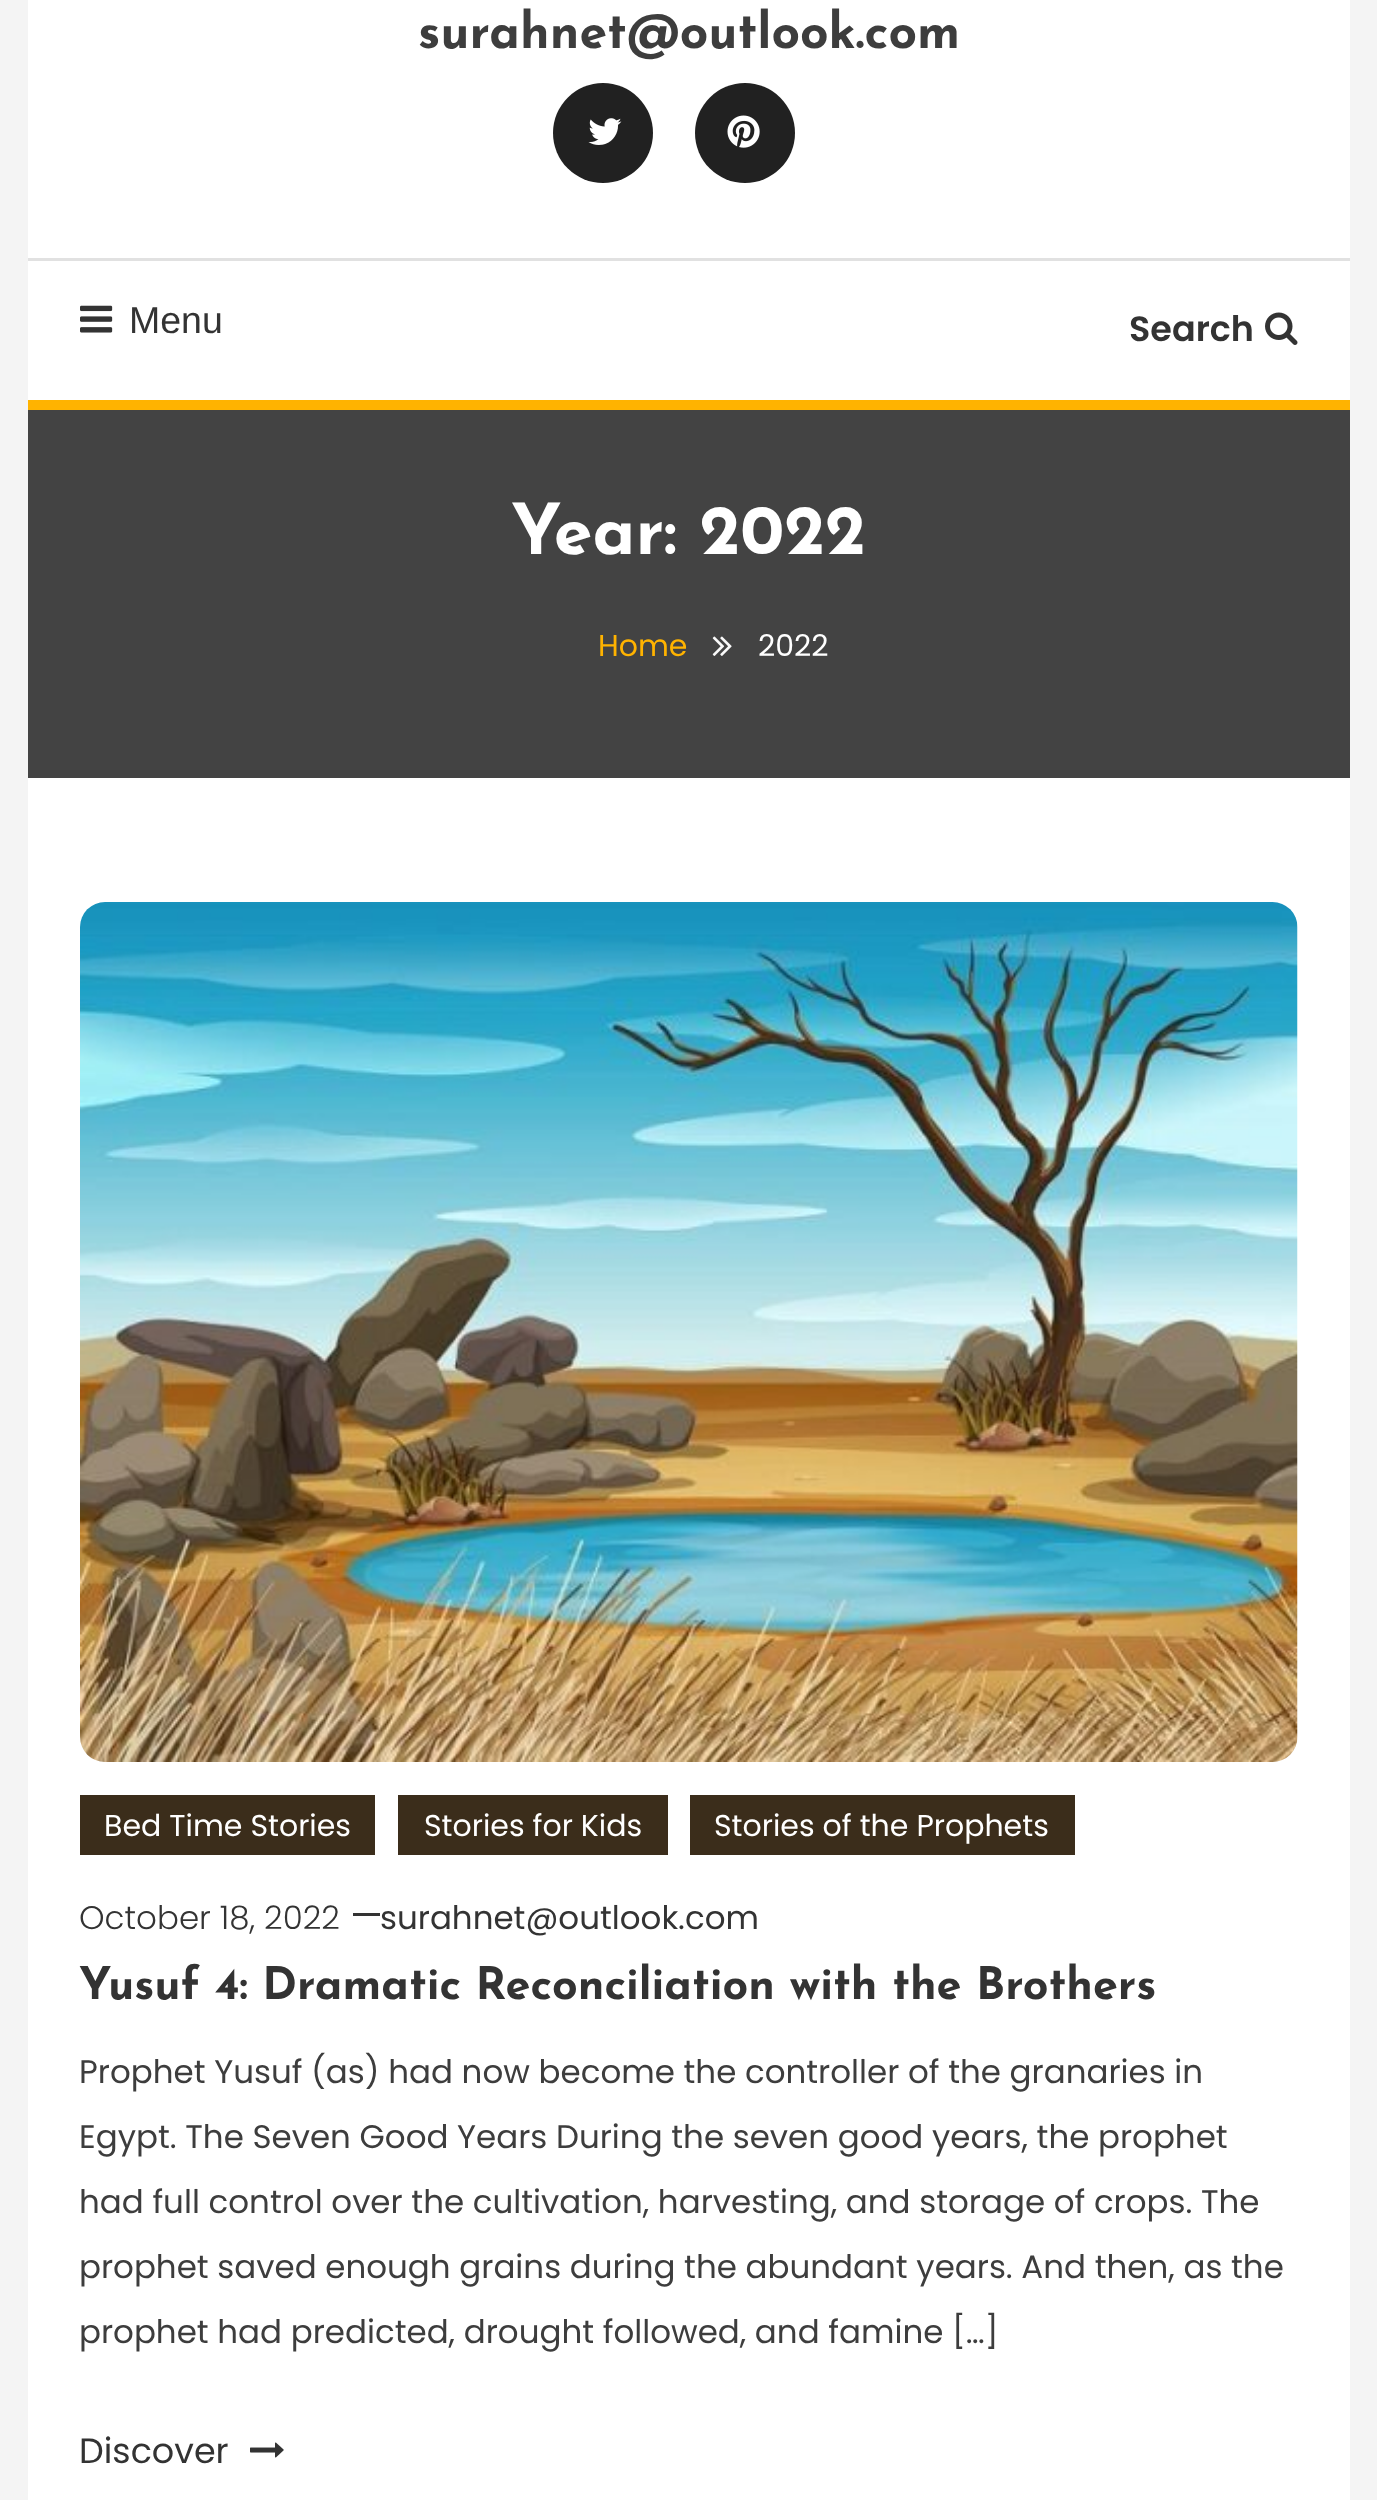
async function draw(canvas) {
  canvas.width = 1377
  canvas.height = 2500
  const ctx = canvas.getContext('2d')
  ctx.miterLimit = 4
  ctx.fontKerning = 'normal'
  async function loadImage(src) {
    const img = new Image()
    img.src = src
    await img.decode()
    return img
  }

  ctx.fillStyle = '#f4f4f4'
  ctx.fillRect(0, 0, 1377, 2500)
  ctx.fillStyle = '#fff'
  ctx.fillRect(28, 0, 1322, 2500)
  ctx.font = 'bold 50px Josefin Sans'
  ctx.fillStyle = '#3d3d3d'
  ctx.fillText('surahnet@outlook.com', 418, 48)
  ctx.fillStyle = '#212121'
  ctx.beginPath()
  ctx.arc(603, 133, 50, 0, 2 * Math.PI)
  ctx.fill()
  ctx.drawImage(await loadImage('image0.png'), 588, 118, 34, 27)
  ctx.beginPath()
  ctx.arc(745, 133, 50, 0, 2 * Math.PI)
  ctx.fill()
  ctx.drawImage(await loadImage('image1.png'), 727, 115, 33, 33)
  ctx.fillStyle = '#e1e1e1'
  ctx.fillRect(28, 258, 1322, 3)
  ctx.drawImage(await loadImage('image2.png'), 80, 305, 33, 28)
  ctx.font = '37.5px Liberation Sans'
  ctx.fillStyle = '#333'
  ctx.fillText('Menu', 129, 333)
  ctx.font = '600 35px Poppins'
  ctx.fillText('Search', 1129, 341)
  ctx.drawImage(await loadImage('image3.png'), 1265, 312, 33, 33)
  ctx.fillStyle = '#434343'
  ctx.fillRect(28, 410, 1322, 368)
  ctx.fillStyle = '#ffb300'
  ctx.fillRect(28, 400, 1322, 10)
  ctx.font = 'bold 70px Josefin Sans'
  ctx.fillStyle = '#fff'
  ctx.fillText('Year: 2022', 511, 554)
  ctx.font = '30px Poppins'
  ctx.fillStyle = '#ffb300'
  ctx.fillText('Home', 598, 656)
  ctx.drawImage(await loadImage('image4.png'), 712, 636, 20, 20)
  ctx.fillStyle = '#fff'
  ctx.fillText('2022', 758, 656)
  ctx.drawImage(await loadImage('image5.png'), 80, 902, 1218, 860)
  ctx.fillStyle = '#3b2d1b'
  ctx.fillRect(80, 1795, 295, 60)
  ctx.fillStyle = '#fff'
  ctx.fillText('Bed Time Stories', 104, 1836)
  ctx.fillStyle = '#3b2d1b'
  ctx.fillRect(398, 1795, 270, 60)
  ctx.fillStyle = '#fff'
  ctx.fillText('Stories for Kids', 424, 1836)
  ctx.fillStyle = '#3b2d1b'
  ctx.fillRect(690, 1795, 385, 60)
  ctx.fillStyle = '#fff'
  ctx.fillText('Stories of the Prophets', 714, 1836)
  ctx.font = '300 32.5px Poppins'
  ctx.fillStyle = '#333'
  ctx.fillText('October 18, 2022', 79, 1929)
  ctx.fillRect(353, 1913, 27, 3)
  ctx.font = '32.5px Poppins'
  ctx.fillText('surahnet@outlook.com', 380, 1929)
  ctx.font = 'bold 45px Josefin Sans'
  ctx.fillText('Yusuf 4: Dramatic Reconciliation with the Brothers', 79, 1999)
  ctx.font = '32.5px Poppins'
  ctx.fillStyle = '#3d3d3d'
  ctx.fillText('Prophet Yusuf (as) had now become the controller of the granaries in', 79, 2083)
  ctx.fillText('Egypt. The Seven Good Years During the seven good years, the prophet', 79, 2148)
  ctx.fillText('had full control over the cultivation, harvesting, and storage of crops. The', 79, 2213)
  ctx.fillText('prophet saved enough grains during the abundant years. And then, as the', 79, 2278)
  ctx.fillText('prophet had predicted, drought followed, and famine […]', 79, 2343)
  ctx.font = '35px Poppins'
  ctx.fillStyle = '#333'
  ctx.fillText('Discover', 79, 2463)
  ctx.drawImage(await loadImage('image6.png'), 250, 2442, 34, 16)
}

draw(document.querySelector('canvas'))
